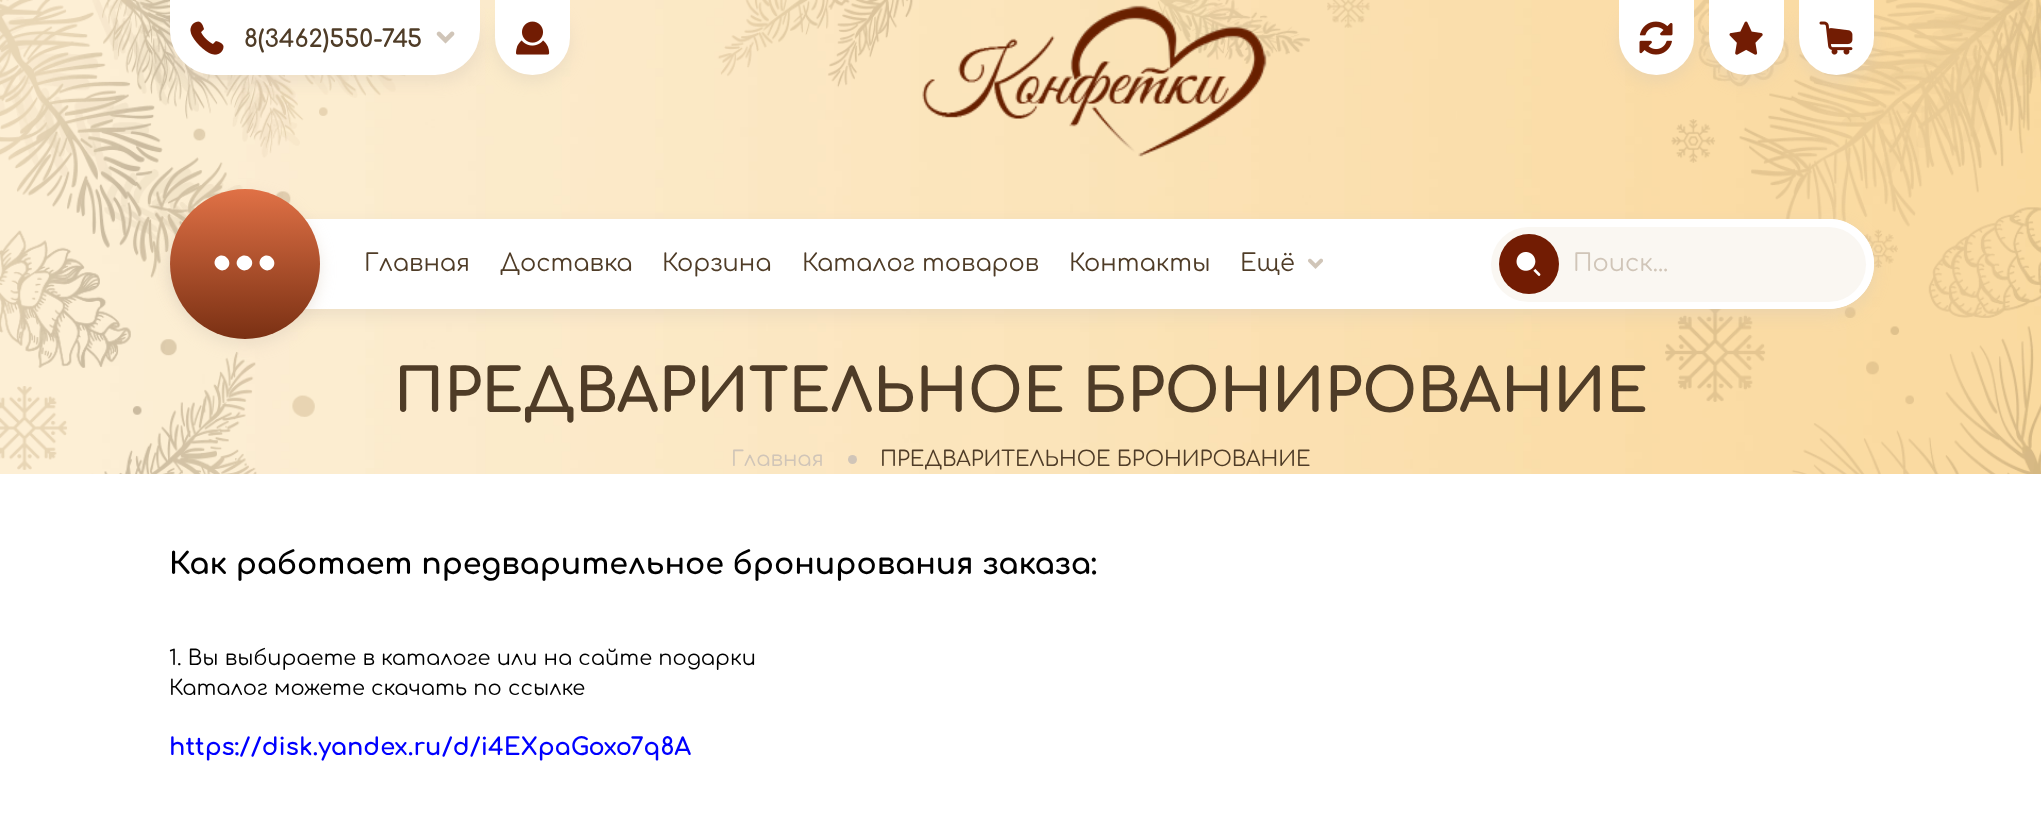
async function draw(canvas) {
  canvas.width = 2041
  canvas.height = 838
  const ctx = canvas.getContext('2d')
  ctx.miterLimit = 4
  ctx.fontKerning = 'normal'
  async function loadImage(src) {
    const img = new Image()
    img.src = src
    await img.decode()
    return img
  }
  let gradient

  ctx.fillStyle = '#fff'
  ctx.fillRect(0, 0, 2041, 838)
  ctx.drawImage(await loadImage('image0.png'), 0, 0, 2041, 474)
  ctx.fillStyle = '#d8c8b666'
  ctx.filter = 'blur(7.5px)'
  ctx.beginPath()
  ctx.roundRect(170, 6, 310, 75, 45)
  ctx.fill()
  ctx.filter = 'none'
  ctx.fillStyle = '#fff'
  ctx.beginPath()
  ctx.roundRect(170, 0, 310, 75, [0, 0, 45, 45])
  ctx.fill()
  ctx.drawImage(await loadImage('image1.png'), 190, 21, 34, 34)
  ctx.font = 'bold 24px Comfortaa'
  ctx.fillStyle = '#4f3c27'
  ctx.fillText('8(3462)550-745', 244, 47)
  ctx.drawImage(await loadImage('image2.png'), 436, 31, 19, 13)
  ctx.fillStyle = '#d8c8b666'
  ctx.filter = 'blur(7.5px)'
  ctx.beginPath()
  ctx.roundRect(495, 6, 75, 75, 37.5)
  ctx.fill()
  ctx.filter = 'none'
  ctx.fillStyle = '#fff'
  ctx.beginPath()
  ctx.roundRect(495, 0, 75, 75, [0, 0, 37.5, 37.5])
  ctx.fill()
  ctx.drawImage(await loadImage('image3.png'), 516, 21, 34, 34)
  ctx.drawImage(await loadImage('image4.png'), 922, 5, 345, 152)
  ctx.fillStyle = '#d8c8b666'
  ctx.filter = 'blur(7.5px)'
  ctx.beginPath()
  ctx.roundRect(1619, 6, 75, 75, 37.5)
  ctx.fill()
  ctx.filter = 'none'
  ctx.fillStyle = '#fff'
  ctx.beginPath()
  ctx.roundRect(1619, 0, 75, 75, [0, 0, 37.5, 37.5])
  ctx.fill()
  ctx.drawImage(await loadImage('image5.png'), 1639, 21, 34, 34)
  ctx.fillStyle = '#d8c8b666'
  ctx.filter = 'blur(7.5px)'
  ctx.beginPath()
  ctx.roundRect(1709, 6, 75, 75, 37.5)
  ctx.fill()
  ctx.filter = 'none'
  ctx.fillStyle = '#fff'
  ctx.beginPath()
  ctx.roundRect(1709, 0, 75, 75, [0, 0, 37.5, 37.5])
  ctx.fill()
  ctx.drawImage(await loadImage('image6.png'), 1729, 21, 34, 34)
  ctx.fillStyle = '#d8c8b666'
  ctx.filter = 'blur(7.5px)'
  ctx.beginPath()
  ctx.roundRect(1799, 6, 75, 75, 37.5)
  ctx.fill()
  ctx.filter = 'none'
  ctx.fillStyle = '#fff'
  ctx.beginPath()
  ctx.roundRect(1799, 0, 75, 75, [0, 0, 37.5, 37.5])
  ctx.fill()
  ctx.drawImage(await loadImage('image7.png'), 1819, 21, 34, 34)
  ctx.fillStyle = '#d8c8b666'
  ctx.filter = 'blur(7.5px)'
  ctx.beginPath()
  ctx.roundRect(170, 225, 1704, 90, 45)
  ctx.fill()
  ctx.filter = 'none'
  ctx.fillStyle = '#fff'
  ctx.beginPath()
  ctx.roundRect(170, 219, 1704, 90, 45)
  ctx.fill()
  ctx.fillStyle = '#d8c8b666'
  ctx.filter = 'blur(7.5px)'
  ctx.beginPath()
  ctx.roundRect(170, 195, 150, 150, 75)
  ctx.fill()
  ctx.filter = 'none'
  gradient = ctx.createLinearGradient(245, 189, 245, 339)
  gradient.addColorStop(0, '#e07146')
  gradient.addColorStop(1, '#7a3013')
  ctx.fillStyle = gradient
  ctx.beginPath()
  ctx.arc(245, 264, 75, 0, 2 * Math.PI)
  ctx.fill()
  ctx.fillStyle = '#fff'
  ctx.beginPath()
  ctx.moveTo(272, 258)
  ctx.bezierCurveTo(279, 265, 269, 275, 262, 268)
  ctx.bezierCurveTo(255, 261, 265, 251, 272, 258)
  ctx.closePath()
  ctx.moveTo(250, 258)
  ctx.bezierCurveTo(257, 265, 246, 275, 239, 268)
  ctx.bezierCurveTo(232, 261, 243, 251, 250, 258)
  ctx.closePath()
  ctx.moveTo(227, 258)
  ctx.bezierCurveTo(234, 265, 224, 275, 217, 268)
  ctx.bezierCurveTo(210, 261, 220, 251, 227, 258)
  ctx.closePath()
  ctx.fill()
  ctx.font = '24px Comfortaa'
  ctx.fillStyle = '#4f3c27'
  ctx.fillText('Главная', 364, 271)
  ctx.fillText('Доставка', 500, 271)
  ctx.fillText('Корзина', 662, 271)
  ctx.fillText('Каталог товаров', 802, 271)
  ctx.fillText('Контакты', 1069, 271)
  ctx.fillText('Ещё', 1240, 271)
  ctx.drawImage(await loadImage('image8.png'), 1308, 258, 15, 11)
  ctx.beginPath()
  ctx.roundRect(1488, 223, 382, 82, 41)
  ctx.strokeStyle = '#fff'
  ctx.lineWidth = 8
  ctx.stroke()
  ctx.fillStyle = '#faf7f2'
  ctx.beginPath()
  ctx.roundRect(1491, 227, 375, 75, 37.5)
  ctx.fill()
  ctx.fillStyle = '#721c03'
  ctx.beginPath()
  ctx.arc(1529, 264, 30, 0, 2 * Math.PI)
  ctx.fill()
  ctx.drawImage(await loadImage('image9.png'), 1516, 252, 25, 24)
  ctx.fillStyle = '#d0c5b8'
  ctx.fillText('Поиск...', 1573, 271)
  ctx.font = 'bold 60px Comfortaa'
  ctx.fillStyle = '#4f3c27'
  ctx.fillText('ПРЕДВАРИТЕЛЬНОЕ БРОНИРОВАНИЕ', 394, 412)
  ctx.font = '21px Comfortaa'
  ctx.fillStyle = '#d0c5b8'
  ctx.fillText('Главная', 731, 466)
  ctx.beginPath()
  ctx.arc(852.5, 459.5, 4.5, 0, 2 * Math.PI)
  ctx.fill()
  ctx.fillStyle = '#4f3c27'
  ctx.fillText('ПРЕДВАРИТЕЛЬНОЕ БРОНИРОВАНИЕ', 880, 466)
  ctx.font = 'bold 30px Comfortaa'
  ctx.fillStyle = '#000'
  ctx.fillText('Как работает предварительное бронирования заказа:', 169, 574)
  ctx.font = '21px Comfortaa'
  ctx.fillText('1. Вы выбираете в каталоге или на сайте подарки', 169, 665)
  ctx.fillText('Каталог можете скачать по ссылке', 169, 695)
  ctx.font = 'bold 24px Comfortaa'
  ctx.fillStyle = '#00f'
  ctx.fillText('https://disk.yandex.ru/d/i4EXpaGoxo7q8A', 169, 755)
}

draw(document.querySelector('canvas'))
